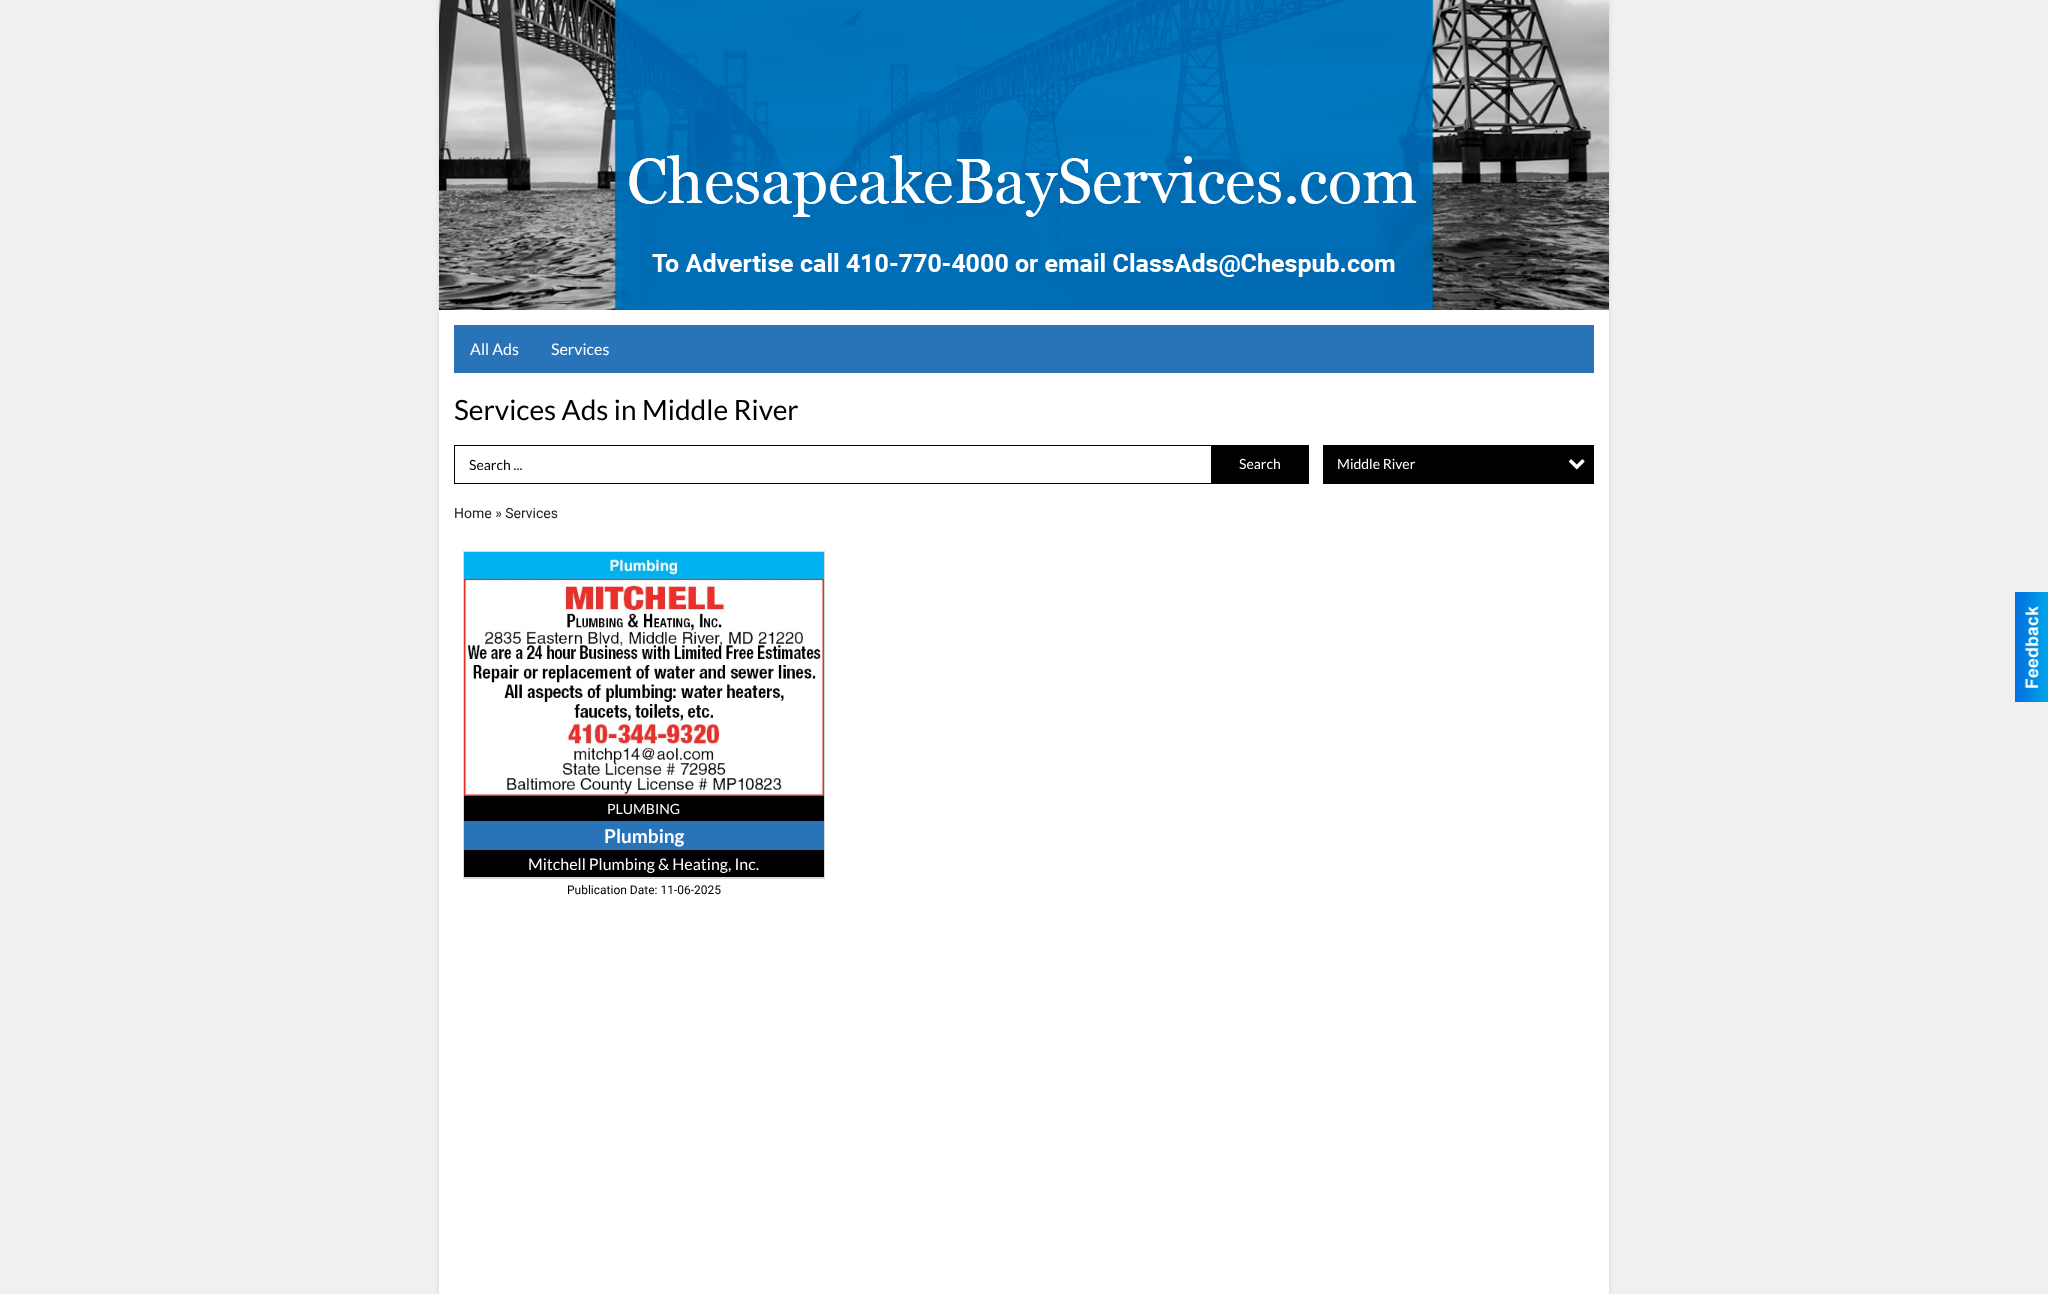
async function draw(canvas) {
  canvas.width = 2048
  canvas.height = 1294
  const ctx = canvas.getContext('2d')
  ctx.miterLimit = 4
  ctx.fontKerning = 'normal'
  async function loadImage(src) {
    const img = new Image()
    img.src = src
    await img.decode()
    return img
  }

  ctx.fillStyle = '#f0f0f0'
  ctx.fillRect(0, 0, 2048, 1294)
  ctx.fillStyle = '#0000001a'
  ctx.filter = 'blur(2.5px)'
  ctx.beginPath()
  ctx.rect(439, 0, 1170, 1294)
  ctx.fill()
  ctx.filter = 'none'
  ctx.fillStyle = '#fff'
  ctx.fillRect(439, 310, 1170, 984)
  ctx.drawImage(await loadImage('image0.png'), 439, 0, 1170, 310)
  ctx.fillStyle = '#2974b8'
  ctx.fillRect(454, 325, 1140, 48)
  ctx.font = '16px Lato'
  ctx.fillStyle = '#fff'
  ctx.fillText('All Ads', 470, 355)
  ctx.fillText('Services', 551, 355)
  ctx.font = '28px Lato'
  ctx.fillStyle = '#000'
  ctx.fillText('Services Ads in Middle River', 454, 420)
  ctx.strokeStyle = '#000'
  ctx.strokeRect(454.5, 445.5, 854, 38)
  ctx.font = '14px Lato'
  ctx.fillText('Search ...', 469, 470)
  ctx.fillRect(1211, 446, 97, 37)
  ctx.fillStyle = '#fff'
  ctx.fillText('Search', 1239, 469)
  ctx.fillStyle = '#000'
  ctx.fillRect(1323, 445, 271, 39)
  ctx.fillStyle = '#fff'
  ctx.fillText('Middle River', 1337, 469)
  ctx.drawImage(await loadImage('image1.png'), 1568, 459, 17, 11)
  ctx.font = '14px Roboto'
  ctx.fillStyle = '#222'
  ctx.fillText('Home » Services', 454, 518)
  ctx.strokeStyle = '#d9d9d9'
  ctx.strokeRect(463.5, 551.5, 361, 327)
  ctx.fillStyle = '#d9d9d9'
  ctx.fillRect(464, 877, 360, 1)
  ctx.drawImage(await loadImage('image2.png'), 464, 552, 360, 244)
  ctx.fillStyle = '#000'
  ctx.fillRect(464, 796, 360, 81)
  ctx.font = '14px Lato'
  ctx.fillStyle = '#fff'
  ctx.fillText('PLUMBING', 607, 814)
  ctx.fillStyle = '#2974b8'
  ctx.fillRect(464, 821, 360, 29)
  ctx.font = 'bold 19px Lato'
  ctx.fillStyle = '#fff'
  ctx.fillText('Plumbing', 604, 843)
  ctx.font = '16px Lato'
  ctx.fillText('Mitchell Plumbing & Heating, Inc.', 528, 870)
  ctx.font = '12px Roboto'
  ctx.fillStyle = '#000'
  ctx.fillText('Publication Date: 11-06-2025', 567, 894)
  ctx.drawImage(await loadImage('image3.png'), 2015, 592, 33, 110)
}

draw(document.querySelector('canvas'))
